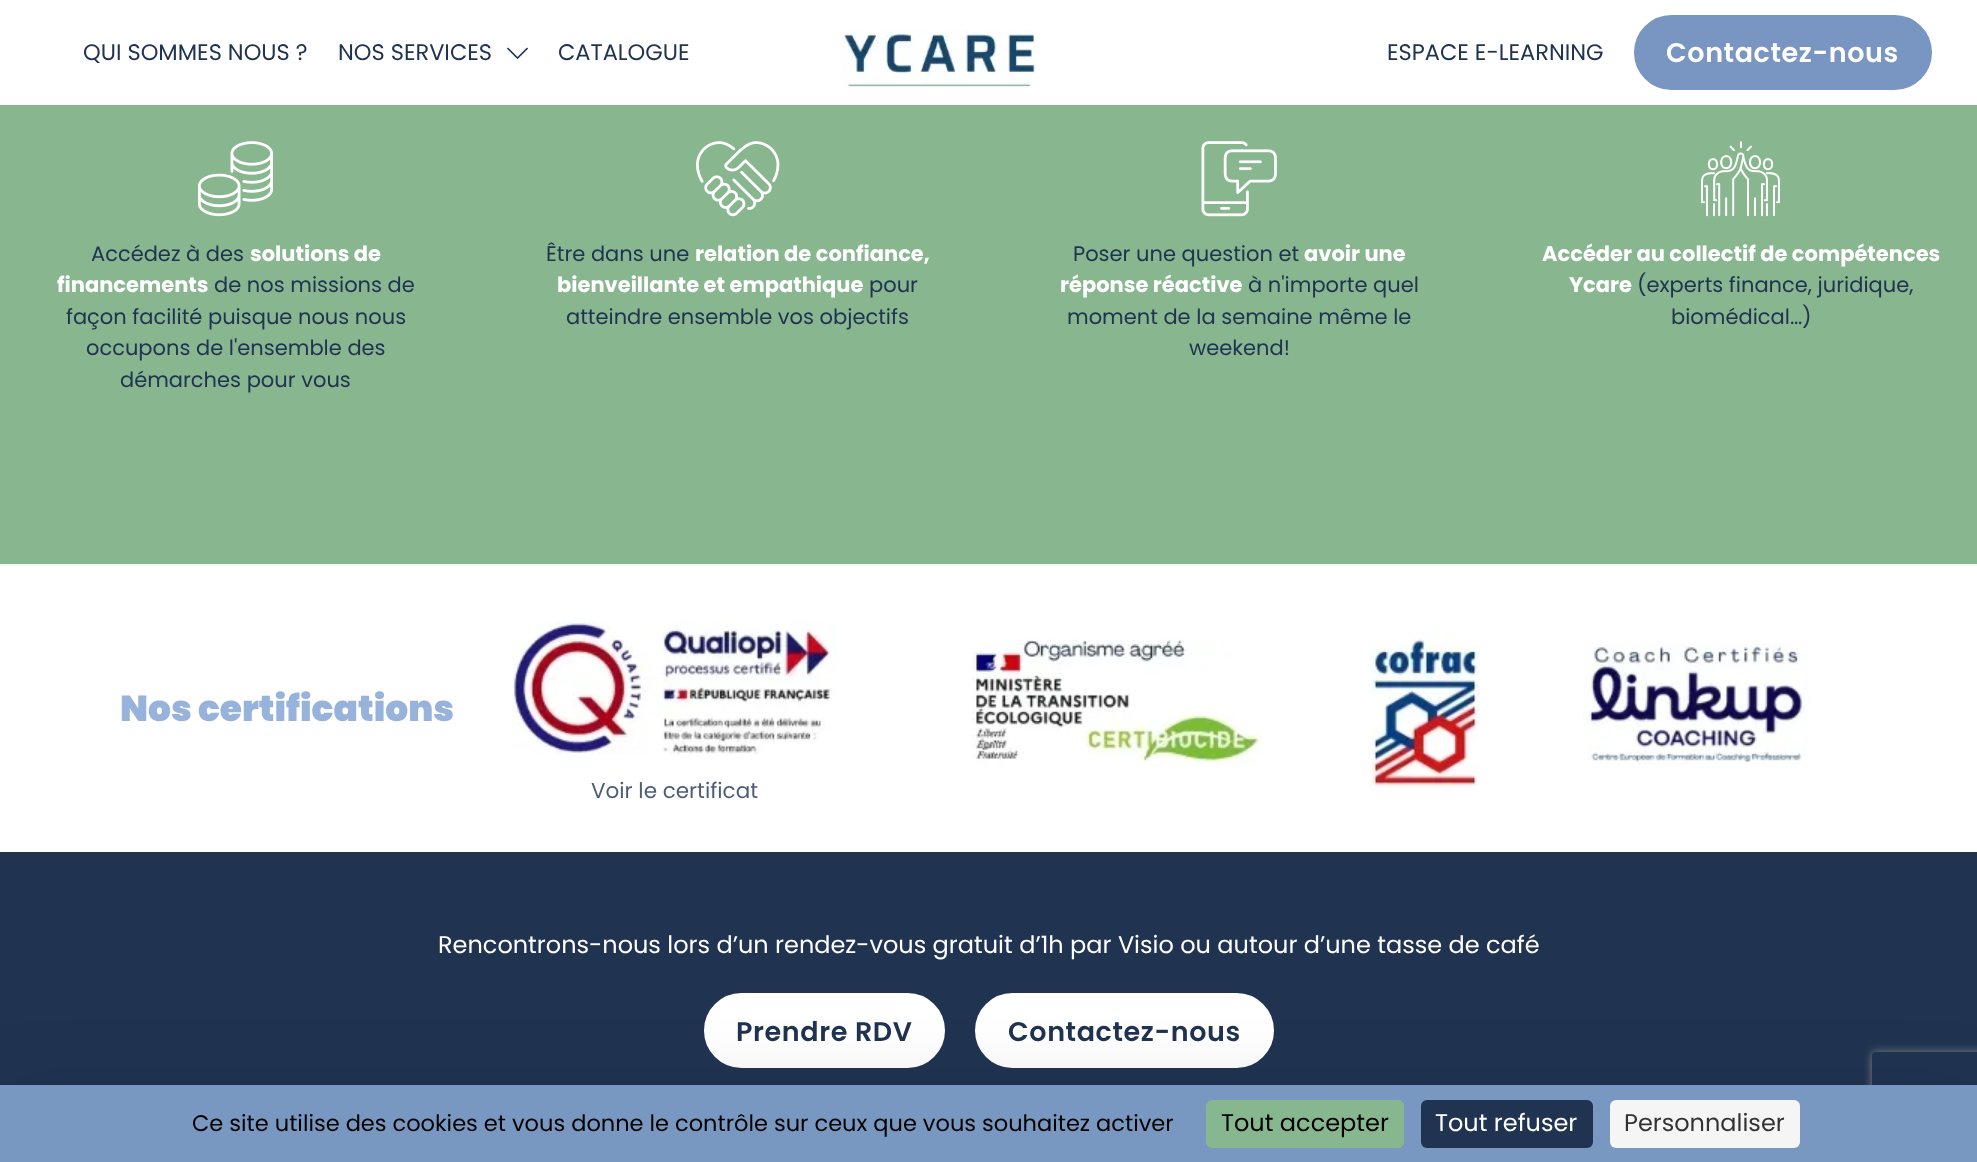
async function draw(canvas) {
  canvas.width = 1977
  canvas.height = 1162
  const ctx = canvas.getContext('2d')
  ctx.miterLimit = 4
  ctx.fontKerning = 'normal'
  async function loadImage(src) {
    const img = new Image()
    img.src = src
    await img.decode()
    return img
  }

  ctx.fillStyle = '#fff'
  ctx.fillRect(0, 0, 1977, 1162)
  ctx.font = '22.5px Poppins'
  ctx.fillStyle = '#203452'
  ctx.fillText('QUI SOMMES NOUS ?', 83, 60)
  ctx.fillText('NOS SERVICES', 338, 60)
  ctx.drawImage(await loadImage('image0.png'), 507, 47, 21, 12)
  ctx.fillText('CATALOGUE', 558, 60)
  ctx.drawImage(await loadImage('image1.png'), 843, 30, 193, 58)
  ctx.fillText('ESPACE E-LEARNING', 1387, 60)
  ctx.fillStyle = '#7896c1'
  ctx.beginPath()
  ctx.roundRect(1635.5, 16.5, 295, 72, 36)
  ctx.fill()
  ctx.strokeStyle = '#7896c1'
  ctx.lineWidth = 3
  ctx.stroke()
  ctx.letterSpacing = '0.6px'
  ctx.font = '600 27px Poppins'
  ctx.fillStyle = '#fff'
  ctx.fillText('Contactez-nous', 1666, 62)
  ctx.fillStyle = '#88b78f'
  ctx.fillRect(0, 105, 1977, 459)
  ctx.drawImage(await loadImage('image2.png'), 198, 141, 75, 76)
  ctx.letterSpacing = '0px'
  ctx.font = '21px Poppins'
  ctx.fillStyle = '#203452'
  ctx.fillText('Accédez à des', 91, 261)
  ctx.font = 'bold 21px Poppins'
  ctx.fillStyle = '#fff'
  ctx.fillText('solutions de', 250, 261)
  ctx.fillText('financements', 57, 292)
  ctx.font = '21px Poppins'
  ctx.fillStyle = '#203452'
  ctx.fillText('de nos missions de', 214, 292)
  ctx.fillText('façon facilité puisque nous nous', 66, 324)
  ctx.fillText('occupons de l\'ensemble des', 86, 355)
  ctx.fillText('démarches pour vous', 120, 387)
  ctx.drawImage(await loadImage('image3.png'), 696, 141, 84, 76)
  ctx.fillText('Être dans une', 546, 261)
  ctx.font = 'bold 21px Poppins'
  ctx.fillStyle = '#fff'
  ctx.fillText('relation de confiance,', 695, 261)
  ctx.fillText('bienveillante et empathique', 557, 292)
  ctx.font = '21px Poppins'
  ctx.fillStyle = '#203452'
  ctx.fillText('pour', 869, 292)
  ctx.fillText('atteindre ensemble vos objectifs', 566, 324)
  ctx.drawImage(await loadImage('image4.png'), 1201, 141, 76, 76)
  ctx.fillText('Poser une question et', 1073, 261)
  ctx.font = 'bold 21px Poppins'
  ctx.fillStyle = '#fff'
  ctx.fillText('avoir une', 1304, 261)
  ctx.fillText('réponse réactive', 1060, 292)
  ctx.font = '21px Poppins'
  ctx.fillStyle = '#203452'
  ctx.fillText('à n\'importe quel', 1248, 292)
  ctx.fillText('moment de la semaine même le', 1067, 324)
  ctx.fillText('weekend!', 1189, 355)
  ctx.drawImage(await loadImage('image5.png'), 1701, 141, 79, 76)
  ctx.font = 'bold 21px Poppins'
  ctx.fillStyle = '#fff'
  ctx.fillText('Accéder au collectif de compétences', 1542, 261)
  ctx.fillText('Ycare', 1569, 292)
  ctx.font = '21px Poppins'
  ctx.fillStyle = '#203452'
  ctx.fillText('(experts finance, juridique,', 1637, 292)
  ctx.fillText('biomédical…)', 1671, 324)
  ctx.fillStyle = '#f7f7f7'
  ctx.fillRect(0, 564, 1977, 2)
  ctx.font = '900 36px Poppins'
  ctx.fillStyle = '#98b3db'
  ctx.fillText('Nos certifications', 120, 721)
  ctx.drawImage(await loadImage('image6.png'), 972, 639, 290, 128)
  ctx.drawImage(await loadImage('image7.png'), 1370, 631, 110, 157)
  ctx.drawImage(await loadImage('image8.png'), 1582, 643, 228, 122)
  ctx.drawImage(await loadImage('image9.png'), 512, 620, 325, 135)
  ctx.font = '21.5px Poppins'
  ctx.fillStyle = '#4d5d75'
  ctx.fillText('Voir le certificat', 591, 798)
  ctx.fillStyle = '#203452'
  ctx.fillRect(0, 852, 1977, 233)
  ctx.font = '24px Poppins'
  ctx.fillStyle = '#fff'
  ctx.fillText('Rencontrons-nous lors d’un rendez-vous gratuit d’1h par Visio ou autour d’une tasse de café', 438, 953)
  ctx.beginPath()
  ctx.roundRect(705.5, 994.5, 238, 72, 36)
  ctx.fill()
  ctx.strokeStyle = '#fff'
  ctx.stroke()
  ctx.letterSpacing = '0.6px'
  ctx.font = '600 27px Poppins'
  ctx.fillStyle = '#203452'
  ctx.fillText('Prendre RDV', 736, 1041)
  ctx.fillStyle = '#fff'
  ctx.beginPath()
  ctx.roundRect(976.5, 994.5, 296, 72, 36)
  ctx.fill()
  ctx.stroke()
  ctx.fillStyle = '#203452'
  ctx.fillText('Contactez-nous', 1008, 1041)
  ctx.fillStyle = '#00000040'
  ctx.filter = 'blur(45px)'
  ctx.beginPath()
  ctx.rect(0, 1115, 1977, 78)
  ctx.fill()
  ctx.filter = 'none'
  ctx.save()
  ctx.beginPath()
  ctx.moveTo(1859, 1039)
  ctx.lineTo(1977, 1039)
  ctx.lineTo(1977, 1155)
  ctx.lineTo(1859, 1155)
  ctx.closePath()
  ctx.moveTo(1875, 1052)
  ctx.lineTo(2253, 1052)
  ctx.bezierCurveTo(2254.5, 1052, 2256, 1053.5, 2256, 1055)
  ctx.lineTo(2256, 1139)
  ctx.bezierCurveTo(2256, 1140.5, 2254.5, 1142, 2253, 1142)
  ctx.lineTo(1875, 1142)
  ctx.bezierCurveTo(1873.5, 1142, 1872, 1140.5, 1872, 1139)
  ctx.lineTo(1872, 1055)
  ctx.bezierCurveTo(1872, 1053.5, 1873.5, 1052, 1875, 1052)
  ctx.closePath()
  ctx.clip('evenodd')
  ctx.fillStyle = '#808080'
  ctx.filter = 'blur(4px)'
  ctx.beginPath()
  ctx.roundRect(1872, 1052, 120, 90, 3)
  ctx.fill()
  ctx.filter = 'none'
  ctx.restore()
  ctx.fillStyle = '#7897c1'
  ctx.fillRect(0, 1085, 1977, 77)
  ctx.letterSpacing = '0px'
  ctx.font = '22.5px Poppins'
  ctx.fillStyle = '#000'
  ctx.fillText('Ce site utilise des cookies et vous donne le contrôle sur ceux que vous souhaitez activer', 192, 1131)
  ctx.fillStyle = '#86b78f'
  ctx.beginPath()
  ctx.roundRect(1206, 1100, 198, 48, 6)
  ctx.fill()
  ctx.font = '24px Poppins'
  ctx.fillStyle = '#000'
  ctx.fillText('Tout accepter', 1221, 1131)
  ctx.fillStyle = '#203452'
  ctx.beginPath()
  ctx.roundRect(1421, 1100, 172, 48, 6)
  ctx.fill()
  ctx.fillStyle = '#fff'
  ctx.fillText('Tout refuser', 1435, 1131)
  ctx.fillStyle = '#f5f5f5'
  ctx.beginPath()
  ctx.roundRect(1610, 1100, 190, 48, 6)
  ctx.fill()
  ctx.fillStyle = '#333'
  ctx.fillText('Personnaliser', 1624, 1131)
}

draw(document.querySelector('canvas'))
